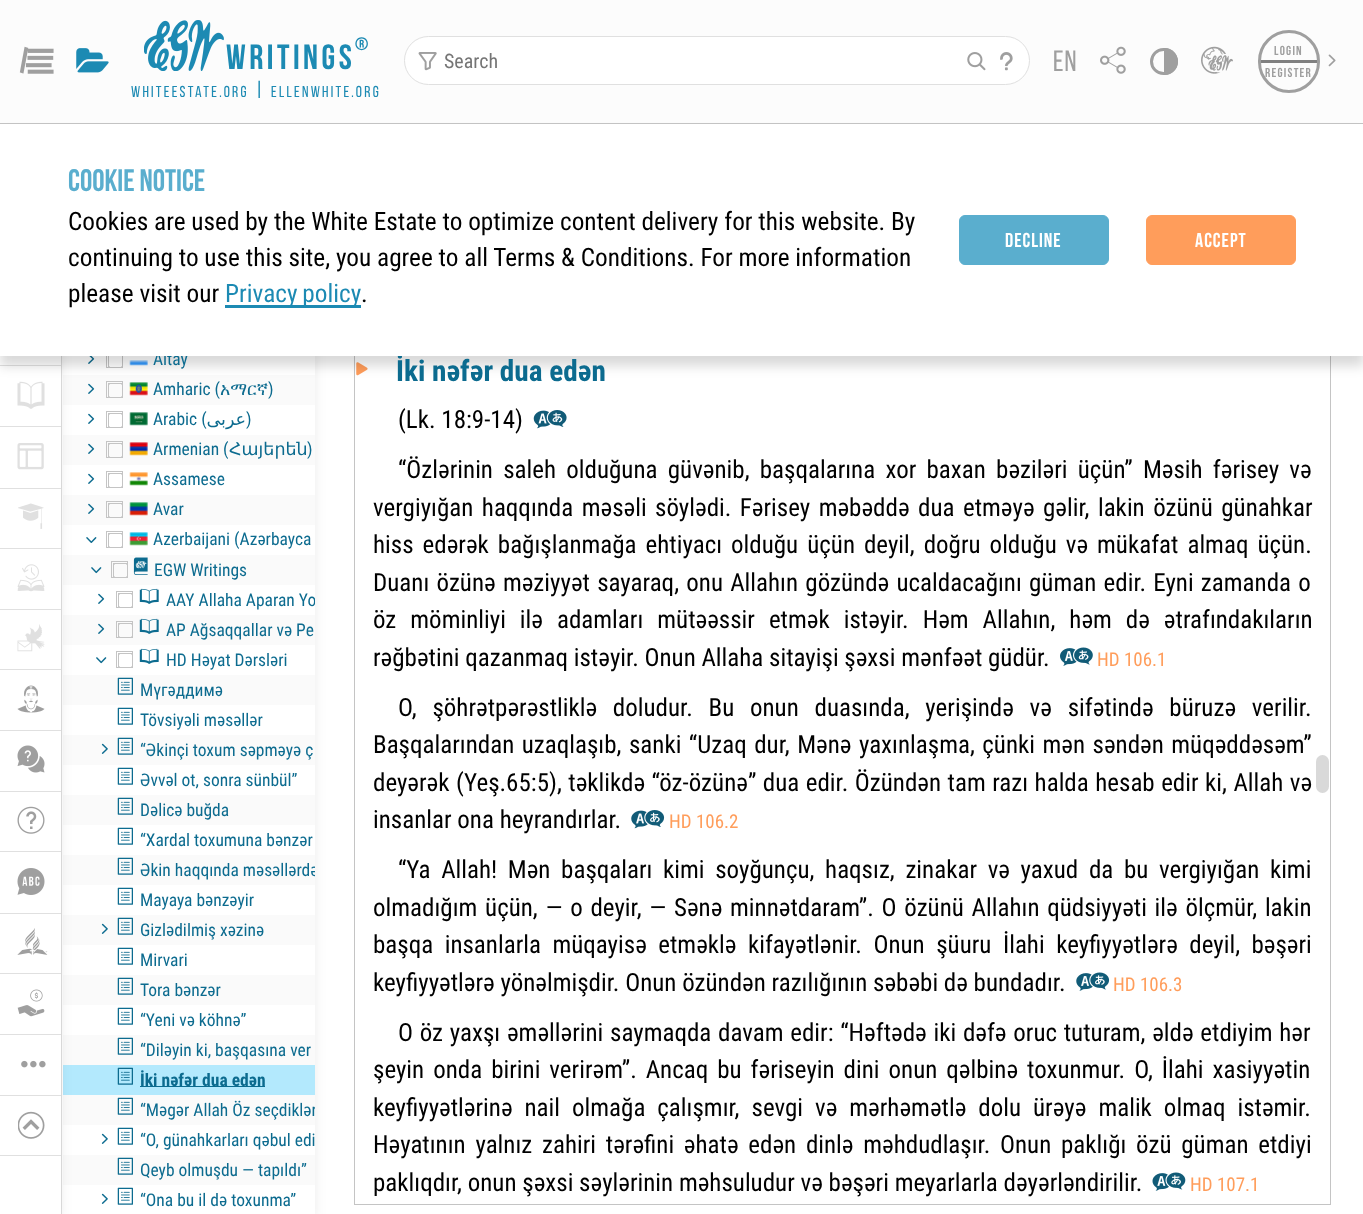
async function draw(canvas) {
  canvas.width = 1363
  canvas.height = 1214
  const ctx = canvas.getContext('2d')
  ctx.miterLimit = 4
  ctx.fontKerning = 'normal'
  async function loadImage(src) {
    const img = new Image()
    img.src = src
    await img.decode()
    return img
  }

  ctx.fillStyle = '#fff'
  ctx.fillRect(0, 0, 1363, 1214)
  ctx.fillStyle = '#00000014'
  ctx.filter = 'blur(6px)'
  ctx.beginPath()
  ctx.rect(61, 126, 254, 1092)
  ctx.fill()
  ctx.filter = 'none'
  ctx.fillStyle = '#fff'
  ctx.fillRect(62, 356, 253, 858)
  ctx.fillStyle = '#e0e0e0'
  ctx.fillRect(61, 356, 1, 858)
  ctx.fillStyle = '#fafafa'
  ctx.fillRect(63, 375, 252, 30)
  ctx.fillRect(63, 435, 252, 30)
  ctx.fillRect(63, 495, 252, 30)
  ctx.fillRect(63, 555, 252, 30)
  ctx.fillRect(63, 615, 252, 30)
  ctx.fillRect(63, 675, 252, 30)
  ctx.fillRect(63, 735, 252, 30)
  ctx.fillRect(63, 795, 252, 30)
  ctx.fillRect(63, 855, 252, 30)
  ctx.fillRect(63, 915, 252, 30)
  ctx.fillRect(63, 975, 252, 30)
  ctx.fillRect(63, 1035, 252, 30)
  ctx.fillStyle = '#b3e9fd'
  ctx.fillRect(63, 1065, 252, 30)
  ctx.fillStyle = '#fafafa'
  ctx.fillRect(63, 1095, 252, 30)
  ctx.fillRect(63, 1155, 252, 30)
  ctx.fillStyle = '#00000014'
  ctx.filter = 'blur(6px)'
  ctx.beginPath()
  ctx.rect(0, 126, 61, 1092)
  ctx.fill()
  ctx.filter = 'none'
  ctx.fillStyle = '#fcfcfc'
  ctx.fillRect(0, 0, 1363, 123)
  ctx.fillStyle = '#c4c4c4'
  ctx.fillRect(0, 123, 1363, 1)
  ctx.drawImage(await loadImage('image0.png'), 19, 46, 35, 28)
  ctx.drawImage(await loadImage('image1.png'), 76, 48, 33, 25)
  ctx.drawImage(await loadImage('image2.png'), 144, 20, 80, 51)
  ctx.letterSpacing = '3.5px'
  ctx.font = 'bold 35px Bebas Neue'
  ctx.fillStyle = '#1c8ab3'
  ctx.fillText('writings', 226, 69)
  ctx.letterSpacing = '2px'
  ctx.font = 'bold 18px Bebas Neue'
  ctx.fillText('®', 355, 50)
  ctx.letterSpacing = '2.25px'
  ctx.font = '15.75px Bebas Neue'
  ctx.fillText('whiteestate.org', 131, 97)
  ctx.font = '22px Bebas Neue'
  ctx.fillText('|', 255, 97)
  ctx.font = '15.75px Bebas Neue'
  ctx.fillText('ellenwhite.org', 271, 97)
  ctx.fillStyle = '#fff'
  ctx.beginPath()
  ctx.roundRect(404.5, 36.5, 625, 48, 24)
  ctx.fill()
  ctx.strokeStyle = '#e0e0e0'
  ctx.stroke()
  ctx.drawImage(await loadImage('image3.png'), 418, 52, 19, 19)
  ctx.letterSpacing = '0px'
  ctx.font = '20px Roboto Condensed'
  ctx.fillStyle = '#757575'
  ctx.fillText('Search', 444, 68)
  ctx.drawImage(await loadImage('image4.png'), 967, 52, 19, 19)
  ctx.drawImage(await loadImage('image5.png'), 1000, 52, 13, 19)
  ctx.letterSpacing = '1px'
  ctx.font = '29.25px Bebas Neue'
  ctx.fillStyle = '#9f9f9f'
  ctx.fillText('en', 1053, 71)
  ctx.drawImage(await loadImage('image6.png'), 1100, 46, 26, 28)
  ctx.beginPath()
  ctx.roundRect(1151.5, 49.5, 25, 24, 12)
  ctx.strokeStyle = '#9f9f9f'
  ctx.lineWidth = 3
  ctx.stroke()
  ctx.beginPath()
  ctx.roundRect(1164, 48, 14, 27, [0, 13.5, 13.5, 0])
  ctx.fill()
  ctx.drawImage(await loadImage('image7.png'), 1201, 46, 32, 28)
  ctx.fillStyle = '#808080'
  ctx.fillRect(1260, 60, 58, 3)
  ctx.beginPath()
  ctx.roundRect(1259.5, 31.5, 59, 60, 29.5)
  ctx.stroke()
  ctx.letterSpacing = '1.25px'
  ctx.font = 'bold 13px Bebas Neue'
  ctx.fillStyle = '#9f9f9f'
  ctx.fillText('logIn', 1274, 55)
  ctx.fillText('Register', 1265, 77)
  ctx.drawImage(await loadImage('image8.png'), 1328, 54, 8, 13)
  ctx.fillStyle = '#fff'
  ctx.fillRect(0, 356, 61, 858)
  ctx.fillStyle = '#e0e0e0'
  ctx.fillRect(0, 365, 61, 1)
  ctx.drawImage(await loadImage('image9.png'), 17, 381, 28, 28)
  ctx.drawImage(await loadImage('image22.png'), 88, 356, 7, 8)
  ctx.strokeStyle = '#c4c4c4'
  ctx.lineWidth = 1
  ctx.strokeRect(108.5, 353.5, 14, 14)
  ctx.strokeRect(106.5, 351.5, 16, 16)
  ctx.beginPath()
  ctx.roundRect(108.5, 353.5, 14, 14, 2)
  ctx.stroke()
  ctx.drawImage(await loadImage('image23.png'), 129, 360, 19, 6)
  ctx.drawImage(await loadImage('image24.png'), 88, 383, 7, 11)
  ctx.strokeRect(108.5, 383.5, 14, 14)
  ctx.strokeRect(106.5, 381.5, 16, 16)
  ctx.beginPath()
  ctx.roundRect(108.5, 383.5, 14, 14, 2)
  ctx.stroke()
  ctx.drawImage(await loadImage('image25.png'), 129, 382, 19, 14)
  ctx.drawImage(await loadImage('image43.png'), 356, 362, 12, 14)
  ctx.drawImage(await loadImage('image44.png'), 533, 410, 34, 19)
  ctx.drawImage(await loadImage('image45.png'), 1060, 647, 33, 19)
  ctx.drawImage(await loadImage('image46.png'), 631, 810, 34, 19)
  ctx.drawImage(await loadImage('image47.png'), 1076, 972, 34, 19)
  ctx.drawImage(await loadImage('image48.png'), 1152, 1172, 34, 19)
  ctx.fillStyle = '#d9d9d9'
  ctx.beginPath()
  ctx.roundRect(1316, 755, 13, 38, 6.5)
  ctx.fill()
  ctx.strokeRect(354.5, 224.5, 976, 980)
  ctx.fillStyle = '#00000026'
  ctx.filter = 'blur(6px)'
  ctx.beginPath()
  ctx.rect(0, 134, 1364, 232)
  ctx.fill()
  ctx.filter = 'none'
  ctx.letterSpacing = '0px'
  ctx.font = '17.5px Roboto Condensed'
  ctx.fillStyle = '#0c6b8f'
  ctx.fillText('Altay', 153, 365)
  ctx.font = 'bold 29.25px Roboto Condensed'
  ctx.fillText('İki nəfər dua edən', 396, 381)
  ctx.fillStyle = '#fff'
  ctx.fillRect(0, 124, 1363, 232)
  ctx.font = 'bold 31px Bebas Neue'
  ctx.fillStyle = '#5aaece'
  ctx.fillText('Cookie Notice', 68, 191)
  ctx.font = '25.3px Roboto Condensed'
  ctx.fillStyle = '#000'
  ctx.fillText('Cookies are used by the White Estate to optimize content delivery for this website. By', 68, 230)
  ctx.fillText('continuing to use this site, you agree to all Terms & Conditions. For more information', 68, 266)
  ctx.fillText('please visit our', 68, 302)
  ctx.fillStyle = '#1c8ab3'
  ctx.fillRect(225, 305, 136, 3)
  ctx.wordSpacing = '-1px'
  ctx.fillText('Privacy policy', 225, 302)
  ctx.wordSpacing = '0px'
  ctx.fillStyle = '#000'
  ctx.fillText('.', 361, 302)
  ctx.fillStyle = '#5aaece'
  ctx.beginPath()
  ctx.roundRect(959.5, 215.5, 149, 49, 5.5)
  ctx.fill()
  ctx.strokeStyle = '#5aaece'
  ctx.stroke()
  ctx.letterSpacing = '1px'
  ctx.font = 'bold 20px Bebas Neue'
  ctx.fillStyle = '#fff'
  ctx.fillText('Decline', 1005, 247)
  ctx.fillStyle = '#ff9d5b'
  ctx.beginPath()
  ctx.roundRect(1146.5, 215.5, 149, 49, 5.5)
  ctx.fill()
  ctx.strokeStyle = '#ff9d5b'
  ctx.stroke()
  ctx.fillStyle = '#fff'
  ctx.fillText('Accept', 1195, 247)
  ctx.fillStyle = '#e0e0e0'
  ctx.fillRect(0, 426, 61, 1)
  ctx.fillRect(0, 488, 61, 1)
  ctx.drawImage(await loadImage('image10.png'), 17, 443, 27, 27)
  ctx.fillRect(0, 548, 61, 1)
  ctx.drawImage(await loadImage('image11.png'), 18, 503, 26, 26)
  ctx.fillRect(0, 609, 61, 1)
  ctx.drawImage(await loadImage('image12.png'), 17, 564, 28, 28)
  ctx.fillRect(0, 669, 61, 1)
  ctx.drawImage(await loadImage('image13.png'), 17, 624, 28, 28)
  ctx.fillRect(0, 730, 61, 1)
  ctx.drawImage(await loadImage('image14.png'), 17, 685, 28, 28)
  ctx.fillRect(0, 791, 61, 1)
  ctx.drawImage(await loadImage('image15.png'), 17, 745, 28, 28)
  ctx.fillRect(0, 851, 61, 1)
  ctx.drawImage(await loadImage('image16.png'), 17, 806, 28, 28)
  ctx.fillRect(0, 913, 61, 1)
  ctx.drawImage(await loadImage('image17.png'), 17, 868, 28, 27)
  ctx.fillRect(0, 973, 61, 1)
  ctx.drawImage(await loadImage('image18.png'), 17, 928, 31, 27)
  ctx.fillRect(0, 1034, 61, 1)
  ctx.drawImage(await loadImage('image19.png'), 17, 989, 28, 28)
  ctx.fillRect(0, 1095, 61, 1)
  ctx.drawImage(await loadImage('image20.png'), 21, 1060, 25, 8)
  ctx.fillRect(0, 1155, 61, 1)
  ctx.drawImage(await loadImage('image21.png'), 18, 1111, 27, 28)
  ctx.letterSpacing = '0px'
  ctx.font = '17.5px Roboto Condensed'
  ctx.fillStyle = '#0c6b8f'
  ctx.fillText('Amharic (', 153, 395)
  ctx.font = '17.5px FreeSerif'
  ctx.fillText('አማርኛ', 220, 395)
  ctx.font = '17.5px Roboto Condensed'
  ctx.fillText(')', 268, 395)
  ctx.drawImage(await loadImage('image26.png'), 88, 413, 7, 11)
  ctx.strokeStyle = '#c4c4c4'
  ctx.strokeRect(108.5, 413.5, 14, 14)
  ctx.strokeRect(106.5, 411.5, 16, 16)
  ctx.beginPath()
  ctx.roundRect(108.5, 413.5, 14, 14, 2)
  ctx.stroke()
  ctx.drawImage(await loadImage('image27.png'), 129, 412, 19, 14)
  ctx.fillText('Arabic (', 153, 425)
  ctx.direction = 'rtl'
  ctx.font = '17.5px DejaVu Sans'
  ctx.fillText('عربى', 246, 425)
  ctx.direction = 'ltr'
  ctx.font = '17.5px Roboto Condensed'
  ctx.fillText(')', 246, 425)
  ctx.drawImage(await loadImage('image24.png'), 88, 443, 7, 11)
  ctx.strokeRect(108.5, 443.5, 14, 14)
  ctx.strokeRect(106.5, 441.5, 16, 16)
  ctx.beginPath()
  ctx.roundRect(108.5, 443.5, 14, 14, 2)
  ctx.stroke()
  ctx.drawImage(await loadImage('image28.png'), 129, 442, 19, 14)
  ctx.fillText('Armenian (', 153, 455)
  ctx.font = '17.5px DejaVu Sans'
  ctx.fillText('Հայերեն', 229, 455)
  ctx.font = '17.5px Roboto Condensed'
  ctx.fillText(')', 307, 455)
  ctx.drawImage(await loadImage('image26.png'), 88, 473, 7, 11)
  ctx.strokeRect(108.5, 473.5, 14, 14)
  ctx.strokeRect(106.5, 471.5, 16, 16)
  ctx.beginPath()
  ctx.roundRect(108.5, 473.5, 14, 14, 2)
  ctx.stroke()
  ctx.drawImage(await loadImage('image29.png'), 129, 472, 19, 14)
  ctx.fillText('Assamese', 153, 485)
  ctx.drawImage(await loadImage('image24.png'), 88, 503, 7, 11)
  ctx.strokeRect(108.5, 503.5, 14, 14)
  ctx.strokeRect(106.5, 501.5, 16, 16)
  ctx.beginPath()
  ctx.roundRect(108.5, 503.5, 14, 14, 2)
  ctx.stroke()
  ctx.drawImage(await loadImage('image30.png'), 129, 502, 19, 14)
  ctx.fillText('Avar', 153, 515)
  ctx.drawImage(await loadImage('image31.png'), 86, 537, 11, 6)
  ctx.strokeRect(108.5, 533.5, 14, 14)
  ctx.strokeRect(106.5, 531.5, 16, 16)
  ctx.beginPath()
  ctx.roundRect(108.5, 533.5, 14, 14, 2)
  ctx.stroke()
  ctx.drawImage(await loadImage('image32.png'), 129, 532, 19, 14)
  ctx.fillText('Azerbaijani (Azərbayca', 153, 545)
  ctx.drawImage(await loadImage('image33.png'), 91, 567, 11, 7)
  ctx.strokeRect(113.5, 563.5, 14, 14)
  ctx.strokeRect(111.5, 561.5, 16, 16)
  ctx.beginPath()
  ctx.roundRect(113.5, 563.5, 14, 14, 2)
  ctx.stroke()
  ctx.drawImage(await loadImage('image34.png'), 133, 557, 15, 18)
  ctx.fillText('EGW Writings', 154, 576)
  ctx.drawImage(await loadImage('image26.png'), 98, 593, 7, 11)
  ctx.strokeRect(118.5, 593.5, 14, 14)
  ctx.strokeRect(116.5, 591.5, 16, 16)
  ctx.beginPath()
  ctx.roundRect(118.5, 593.5, 14, 14, 2)
  ctx.stroke()
  ctx.drawImage(await loadImage('image35.png'), 139, 588, 20, 16)
  ctx.save()
  ctx.beginPath()
  ctx.rect(63, 585, 252, 30)
  ctx.clip()
  ctx.fillText('AAY Allaha Aparan Yo', 166, 606)
  ctx.restore()
  ctx.drawImage(await loadImage('image24.png'), 98, 623, 7, 11)
  ctx.strokeRect(118.5, 623.5, 14, 14)
  ctx.strokeRect(116.5, 621.5, 16, 16)
  ctx.beginPath()
  ctx.roundRect(118.5, 623.5, 14, 14, 2)
  ctx.stroke()
  ctx.drawImage(await loadImage('image36.png'), 139, 618, 20, 16)
  ctx.fillText('AP Ağsaqqallar və Pe', 166, 636)
  ctx.drawImage(await loadImage('image37.png'), 96, 657, 11, 7)
  ctx.strokeRect(118.5, 653.5, 14, 14)
  ctx.strokeRect(116.5, 651.5, 16, 16)
  ctx.beginPath()
  ctx.roundRect(118.5, 653.5, 14, 14, 2)
  ctx.stroke()
  ctx.drawImage(await loadImage('image35.png'), 139, 648, 20, 16)
  ctx.fillText('HD Həyat Dərsləri', 166, 666)
  ctx.drawImage(await loadImage('image38.png'), 117, 677, 16, 18)
  ctx.fillText('Мүгәддимә', 140, 696)
  ctx.drawImage(await loadImage('image39.png'), 117, 707, 16, 18)
  ctx.fillText('Tövsiyəli məsəllər', 140, 726)
  ctx.drawImage(await loadImage('image40.png'), 101, 743, 7, 11)
  ctx.drawImage(await loadImage('image38.png'), 117, 737, 16, 18)
  ctx.fillText('“Əkinçi toxum səpməyə ç', 140, 756)
  ctx.drawImage(await loadImage('image39.png'), 117, 767, 16, 18)
  ctx.fillText('Əvvəl ot, sonra sünbül”', 140, 786)
  ctx.drawImage(await loadImage('image38.png'), 117, 797, 16, 18)
  ctx.fillText('Dəlicə buğda', 140, 816)
  ctx.drawImage(await loadImage('image39.png'), 117, 827, 16, 18)
  ctx.fillText('“Xardal toxumuna bənzər', 140, 846)
  ctx.drawImage(await loadImage('image38.png'), 117, 857, 16, 18)
  ctx.save()
  ctx.beginPath()
  ctx.rect(63, 855, 252, 30)
  ctx.clip()
  ctx.fillText('Əkin haqqında məsəllərdə', 140, 876)
  ctx.restore()
  ctx.drawImage(await loadImage('image39.png'), 117, 887, 16, 18)
  ctx.fillText('Мауауа bənzəyir', 140, 906)
  ctx.drawImage(await loadImage('image40.png'), 101, 923, 7, 11)
  ctx.drawImage(await loadImage('image38.png'), 117, 917, 16, 18)
  ctx.fillText('Gizlədilmiş xəzinə', 140, 936)
  ctx.drawImage(await loadImage('image39.png'), 117, 947, 16, 18)
  ctx.fillText('Mirvari', 140, 966)
  ctx.drawImage(await loadImage('image38.png'), 117, 977, 16, 18)
  ctx.fillText('Tora bənzər', 140, 996)
  ctx.drawImage(await loadImage('image39.png'), 117, 1007, 16, 18)
  ctx.fillText('“Yeni və köhnə”', 140, 1026)
  ctx.drawImage(await loadImage('image38.png'), 117, 1037, 16, 18)
  ctx.fillText('“Diləyin ki, başqasına ver', 140, 1056)
  ctx.drawImage(await loadImage('image41.png'), 117, 1067, 16, 18)
  ctx.fillRect(140, 1086, 125, 1)
  ctx.font = 'bold 17.5px Roboto Condensed'
  ctx.fillText('İki nəfər dua edən', 140, 1086)
  ctx.drawImage(await loadImage('image38.png'), 117, 1097, 16, 18)
  ctx.save()
  ctx.beginPath()
  ctx.rect(63, 1095, 252, 30)
  ctx.clip()
  ctx.font = '17.5px Roboto Condensed'
  ctx.fillText('“Məgər Allah Öz seçdiklər', 140, 1116)
  ctx.restore()
  ctx.drawImage(await loadImage('image42.png'), 101, 1133, 7, 11)
  ctx.drawImage(await loadImage('image39.png'), 117, 1127, 16, 18)
  ctx.font = '17.5px Roboto Condensed'
  ctx.fillText('“O, günahkarları qəbul edi', 140, 1146)
  ctx.drawImage(await loadImage('image38.png'), 117, 1157, 16, 18)
  ctx.fillText('Qeyb olmuşdu — tapıldı”', 140, 1176)
  ctx.drawImage(await loadImage('image42.png'), 101, 1193, 7, 11)
  ctx.drawImage(await loadImage('image39.png'), 117, 1187, 16, 18)
  ctx.fillText('“Ona bu il də toxunma”', 140, 1206)
  ctx.font = '25px Roboto Condensed'
  ctx.fillStyle = '#000'
  ctx.fillText('(Lk. 18:9-14)', 398, 428)
  ctx.wordSpacing = '4.5px'
  ctx.fillText('“Özlərinin saleh olduğuna güvənib, başqalarına xor baxan bəziləri üçün” Məsih fərisey və', 398, 478)
  ctx.wordSpacing = '2.75px'
  ctx.fillText('vergiyığan haqqında məsəli söylədi. Fərisey məbəddə dua etməyə gəlir, lakin özünü günahkar', 373, 516)
  ctx.wordSpacing = '3.25px'
  ctx.fillText('hiss edərək bağışlanmağa ehtiyacı olduğu üçün deyil, doğru olduğu və mükafat almaq üçün.', 373, 553)
  ctx.wordSpacing = '1.5px'
  ctx.fillText('Duanı özünə məziyyət sayaraq, onu Allahın gözündə ucaldacağını güman edir. Eyni zamanda o', 373, 591)
  ctx.wordSpacing = '8.25px'
  ctx.fillText('öz möminliyi ilə adamları mütəəssir etmək istəyir. Həm Allahın, həm də ətrafındakıların', 373, 628)
  ctx.wordSpacing = '0px'
  ctx.fillText('rəğbətini qazanmaq istəyir. Onun Allaha sitayişi şəxsi mənfəət güdür.', 373, 666)
  ctx.font = '19px Roboto Condensed'
  ctx.fillStyle = '#ff9d5b'
  ctx.fillText('HD 106.1', 1097, 666)
  ctx.wordSpacing = '10px'
  ctx.font = '25px Roboto Condensed'
  ctx.fillStyle = '#000'
  ctx.fillText('O, şöhrətpərəstliklə doludur. Bu onun duasında, yerişində və sifətində büruzə verilir.', 398, 716)
  ctx.wordSpacing = '1.75px'
  ctx.fillText('Başqalarından uzaqlaşıb, sanki “Uzaq dur, Mənə yaxınlaşma, çünki mən səndən müqəddəsəm”', 373, 753)
  ctx.wordSpacing = '0.75px'
  ctx.fillText('deyərək (Yeş.65:5), təklikdə “öz-özünə” dua edir. Özündən tam razı halda hesab edir ki, Allah və', 373, 791)
  ctx.wordSpacing = '0px'
  ctx.fillText('insanlar ona heyrandırlar.', 373, 828)
  ctx.font = '19px Roboto Condensed'
  ctx.fillStyle = '#ff9d5b'
  ctx.fillText('HD 106.2', 669, 828)
  ctx.wordSpacing = '4.9px'
  ctx.font = '25px Roboto Condensed'
  ctx.fillStyle = '#000'
  ctx.fillText('“Ya Allah! Mən başqaları kimi soyğunçu, haqsız, zinakar və yaxud da bu vergiyığan kimi', 398, 878)
  ctx.wordSpacing = '2px'
  ctx.fillText('olmadığım üçün, — o deyir, — Sənə minnətdaram”. O özünü Allahın qüdsiyyəti ilə ölçmür, lakin', 373, 916)
  ctx.wordSpacing = '5.75px'
  ctx.fillText('başqa insanlarla müqayisə etməklə kifayətlənir. Onun şüuru İlahi keyfiyyətlərə deyil, bəşəri', 373, 953)
  ctx.wordSpacing = '0px'
  ctx.fillText('keyfiyyətlərə yönəlmişdir. Onun özündən razılığının səbəbi də bundadır.', 373, 991)
  ctx.font = '19px Roboto Condensed'
  ctx.fillStyle = '#ff9d5b'
  ctx.fillText('HD 106.3', 1113, 991)
  ctx.wordSpacing = '1px'
  ctx.font = '25px Roboto Condensed'
  ctx.fillStyle = '#000'
  ctx.fillText('O öz yaxşı əməllərini saymaqda davam edir: “Həftədə iki dəfə oruc tuturam, əldə etdiyim hər', 398, 1041)
  ctx.wordSpacing = '3.25px'
  ctx.fillText('şeyin onda birini verirəm”. Ancaq bu fəriseyin dini onun qəlbinə toxunmur. O, İlahi xasiyyətin', 373, 1078)
  ctx.wordSpacing = '6.25px'
  ctx.fillText('keyfiyyətlərinə nail olmağa çalışmır, sevgi və mərhəmətlə dolu ürəyə malik olmaq istəmir.', 373, 1116)
  ctx.wordSpacing = '4px'
  ctx.fillText('Həyatının yalnız zahiri tərəfini əhatə edən dinlə məhdudlaşır. Onun paklığı özü güman etdiyi', 373, 1153)
  ctx.wordSpacing = '0px'
  ctx.fillText('paklıqdır, onun şəxsi səylərinin məhsuludur və bəşəri meyarlarla dəyərləndirilir.', 373, 1191)
  ctx.font = '19px Roboto Condensed'
  ctx.fillStyle = '#ff9d5b'
  ctx.fillText('HD 107.1', 1190, 1191)
}

draw(document.querySelector('canvas'))
